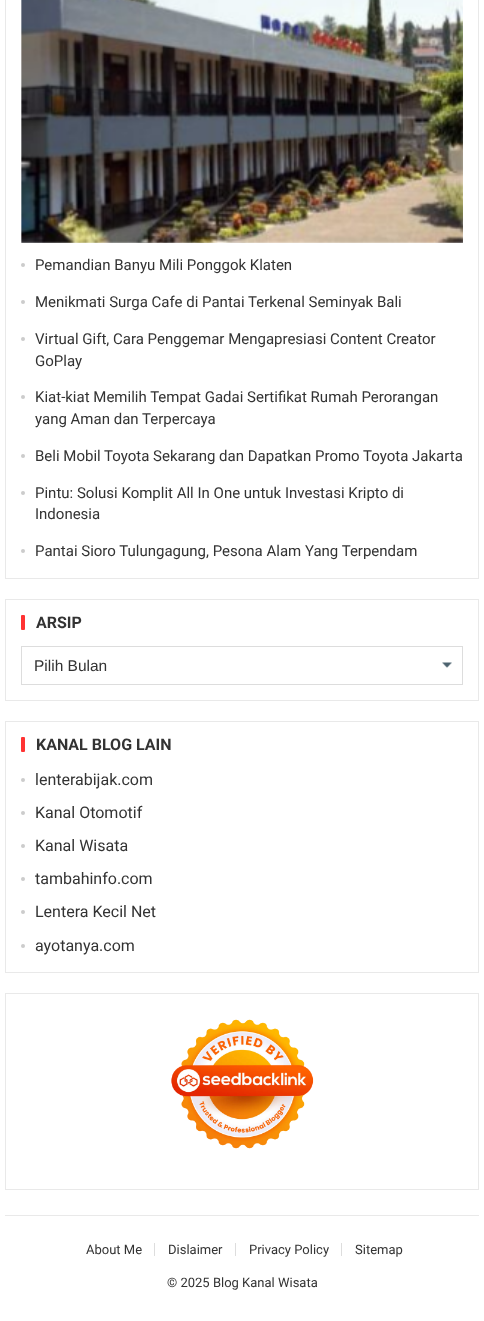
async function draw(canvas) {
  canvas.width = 484
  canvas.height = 1321
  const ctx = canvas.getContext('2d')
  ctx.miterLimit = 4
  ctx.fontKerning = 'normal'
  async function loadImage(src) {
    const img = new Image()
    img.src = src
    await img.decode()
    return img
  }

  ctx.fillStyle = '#fff'
  ctx.fillRect(0, 0, 484, 1321)
  ctx.strokeStyle = '#e9e9e9'
  ctx.strokeRect(5.5, -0.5, 473, 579)
  ctx.drawImage(await loadImage('image0.png'), 21, 0, 442, 243)
  ctx.fillStyle = '#ccc'
  ctx.beginPath()
  ctx.arc(23, 265, 2, 0, 2 * Math.PI)
  ctx.fill()
  ctx.font = '15px Roboto'
  ctx.fillStyle = '#333'
  ctx.fillText('Pemandian Banyu Mili Ponggok Klaten', 35, 270)
  ctx.fillStyle = '#ccc'
  ctx.beginPath()
  ctx.arc(23, 302, 2, 0, 2 * Math.PI)
  ctx.fill()
  ctx.fillStyle = '#333'
  ctx.fillText('Menikmati Surga Cafe di Pantai Terkenal Seminyak Bali', 35, 307)
  ctx.fillStyle = '#ccc'
  ctx.beginPath()
  ctx.arc(23, 339, 2, 0, 2 * Math.PI)
  ctx.fill()
  ctx.fillStyle = '#333'
  ctx.fillText('Virtual Gift, Cara Penggemar Mengapresiasi Content Creator', 35, 344)
  ctx.fillText('GoPlay', 35, 366)
  ctx.fillStyle = '#ccc'
  ctx.beginPath()
  ctx.arc(23, 397, 2, 0, 2 * Math.PI)
  ctx.fill()
  ctx.fillStyle = '#333'
  ctx.fillText('Kiat-kiat Memilih Tempat Gadai Sertifikat Rumah Perorangan', 35, 402)
  ctx.fillText('yang Aman dan Terpercaya', 35, 424)
  ctx.fillStyle = '#ccc'
  ctx.beginPath()
  ctx.arc(23, 456, 2, 0, 2 * Math.PI)
  ctx.fill()
  ctx.fillStyle = '#333'
  ctx.fillText('Beli Mobil Toyota Sekarang dan Dapatkan Promo Toyota Jakarta', 35, 461)
  ctx.fillStyle = '#ccc'
  ctx.beginPath()
  ctx.arc(23, 493, 2, 0, 2 * Math.PI)
  ctx.fill()
  ctx.fillStyle = '#333'
  ctx.fillText('Pintu: Solusi Komplit All In One untuk Investasi Kripto di', 35, 498)
  ctx.fillText('Indonesia', 35, 519)
  ctx.fillStyle = '#ccc'
  ctx.beginPath()
  ctx.arc(23, 551, 2, 0, 2 * Math.PI)
  ctx.fill()
  ctx.fillStyle = '#333'
  ctx.fillText('Pantai Sioro Tulungagung, Pesona Alam Yang Terpendam', 35, 556)
  ctx.strokeRect(5.5, 599.5, 473, 101)
  ctx.fillStyle = '#f33'
  ctx.beginPath()
  ctx.roundRect(21, 615, 4, 15, 1)
  ctx.fill()
  ctx.font = 'bold 16px Roboto'
  ctx.fillStyle = '#333'
  ctx.fillText('ARSIP', 36, 628)
  ctx.drawImage(await loadImage('image1.png'), 442, 662, 10, 6)
  ctx.strokeStyle = '#ddd'
  ctx.strokeRect(21.5, 646.5, 441, 38)
  ctx.font = '15.5px Liberation Sans'
  ctx.fillText('Pilih Bulan', 34, 671)
  ctx.strokeStyle = '#e9e9e9'
  ctx.strokeRect(5.5, 721.5, 473, 251)
  ctx.fillStyle = '#f33'
  ctx.beginPath()
  ctx.roundRect(21, 737, 4, 15, 1)
  ctx.fill()
  ctx.font = 'bold 16px Roboto'
  ctx.fillStyle = '#333'
  ctx.fillText('KANAL BLOG LAIN', 36, 750)
  ctx.fillStyle = '#ccc'
  ctx.beginPath()
  ctx.arc(23, 780, 2, 0, 2 * Math.PI)
  ctx.fill()
  ctx.font = '16px Roboto'
  ctx.fillStyle = '#333'
  ctx.fillText('lenterabijak.com', 35, 785)
  ctx.fillStyle = '#ccc'
  ctx.beginPath()
  ctx.arc(23, 813, 2, 0, 2 * Math.PI)
  ctx.fill()
  ctx.fillStyle = '#333'
  ctx.fillText('Kanal Otomotif', 35, 818)
  ctx.fillStyle = '#ccc'
  ctx.beginPath()
  ctx.arc(23, 846, 2, 0, 2 * Math.PI)
  ctx.fill()
  ctx.fillStyle = '#333'
  ctx.fillText('Kanal Wisata', 35, 851)
  ctx.fillStyle = '#ccc'
  ctx.beginPath()
  ctx.arc(23, 879, 2, 0, 2 * Math.PI)
  ctx.fill()
  ctx.fillStyle = '#333'
  ctx.fillText('tambahinfo.com', 35, 884)
  ctx.fillStyle = '#ccc'
  ctx.beginPath()
  ctx.arc(23, 912, 2, 0, 2 * Math.PI)
  ctx.fill()
  ctx.fillStyle = '#333'
  ctx.fillText('Lentera Kecil Net', 35, 917)
  ctx.fillStyle = '#ccc'
  ctx.beginPath()
  ctx.arc(23, 946, 2, 0, 2 * Math.PI)
  ctx.fill()
  ctx.fillStyle = '#333'
  ctx.fillText('ayotanya.com', 35, 951)
  ctx.strokeRect(5.5, 993.5, 473, 196)
  ctx.drawImage(await loadImage('image2.png'), 171, 1019, 143, 130)
  ctx.fillStyle = '#e9e9e9'
  ctx.fillRect(5, 1215, 474, 1)
  ctx.fillStyle = '#ddd'
  ctx.fillRect(154, 1243, 1, 13)
  ctx.font = '13px Roboto'
  ctx.fillStyle = '#333'
  ctx.fillText('About Me', 86, 1254)
  ctx.fillStyle = '#ddd'
  ctx.fillRect(235, 1243, 1, 13)
  ctx.fillStyle = '#333'
  ctx.fillText('Dislaimer', 168, 1254)
  ctx.fillStyle = '#ddd'
  ctx.fillRect(341, 1243, 1, 13)
  ctx.fillStyle = '#333'
  ctx.fillText('Privacy Policy', 249, 1254)
  ctx.fillText('Sitemap', 355, 1254)
  ctx.fillText('© 2025 Blog Kanal Wisata', 167, 1287)
}

draw(document.querySelector('canvas'))
